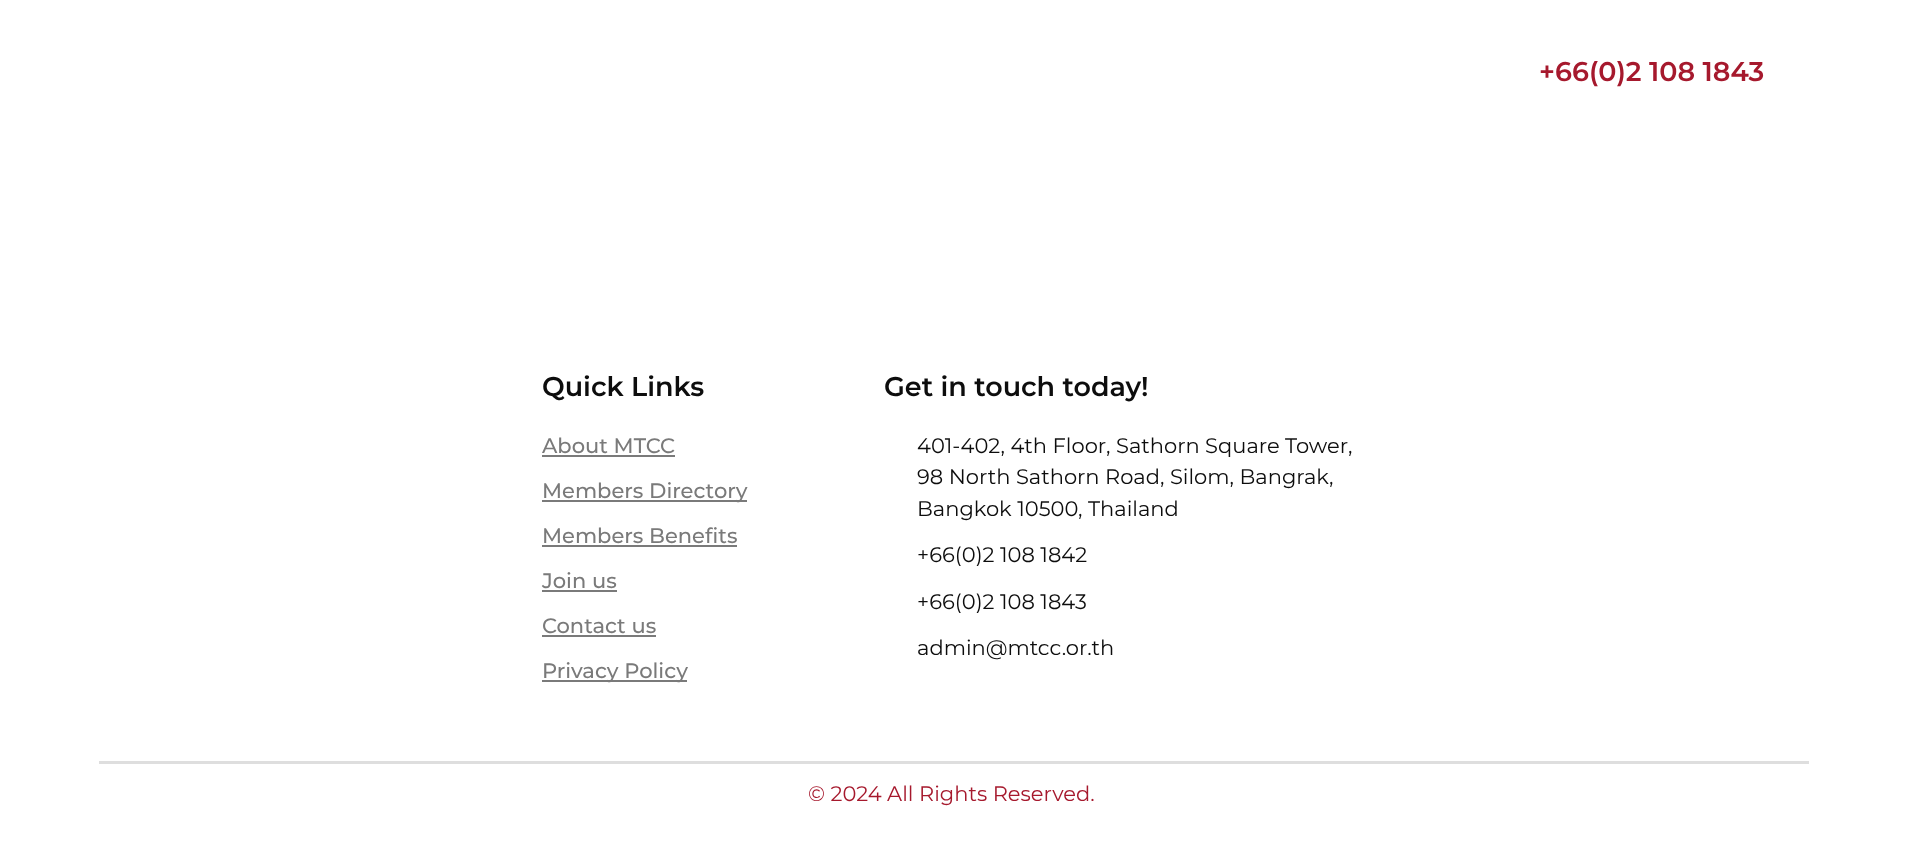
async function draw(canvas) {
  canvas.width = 1907
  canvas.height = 846
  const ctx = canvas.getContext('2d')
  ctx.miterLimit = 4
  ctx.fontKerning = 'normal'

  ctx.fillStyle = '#fff'
  ctx.fillRect(0, 0, 1907, 846)
  ctx.font = '600 27px Montserrat'
  ctx.fillStyle = '#a6192d'
  ctx.fillText('+66(0)2 108 1843', 1539, 81)
  ctx.fillStyle = '#0d0d0d'
  ctx.fillText('Quick Links', 542, 396)
  ctx.font = '500 21px Montserrat'
  ctx.fillStyle = '#7a7a7a'
  ctx.fillText('About MTCC', 542, 453)
  ctx.fillRect(542, 455, 133, 2)
  ctx.fillRect(542, 500, 205, 2)
  ctx.fillText('Members Directory', 542, 498)
  ctx.fillText('Members Benefits', 542, 543)
  ctx.fillRect(542, 545, 195, 2)
  ctx.fillText('Join us', 542, 588)
  ctx.fillRect(542, 590, 75, 2)
  ctx.fillText('Contact us', 542, 633)
  ctx.fillRect(542, 635, 114, 2)
  ctx.fillRect(542, 680, 145, 2)
  ctx.fillText('Privacy Policy', 542, 678)
  ctx.font = '600 27px Montserrat'
  ctx.fillStyle = '#0d0d0d'
  ctx.fillText('Get in touch today!', 884, 396)
  ctx.font = '21px Montserrat'
  ctx.fillText('401-402, 4th Floor, Sathorn Square Tower,', 917, 453)
  ctx.fillText('98 North Sathorn Road, Silom, Bangrak,', 917, 484)
  ctx.fillText('Bangkok 10500, Thailand', 917, 516)
  ctx.fillText('+66(0)2 108 1842', 917, 562)
  ctx.fillText('+66(0)2 108 1843', 917, 609)
  ctx.fillText('admin@mtcc.or.th', 917, 655)
  ctx.fillStyle = '#dedede'
  ctx.fillRect(99, 761, 1710, 3)
  ctx.fillStyle = '#a6192d'
  ctx.fillText('© 2024 All Rights Reserved.', 808, 801)
}

draw(document.querySelector('canvas'))
